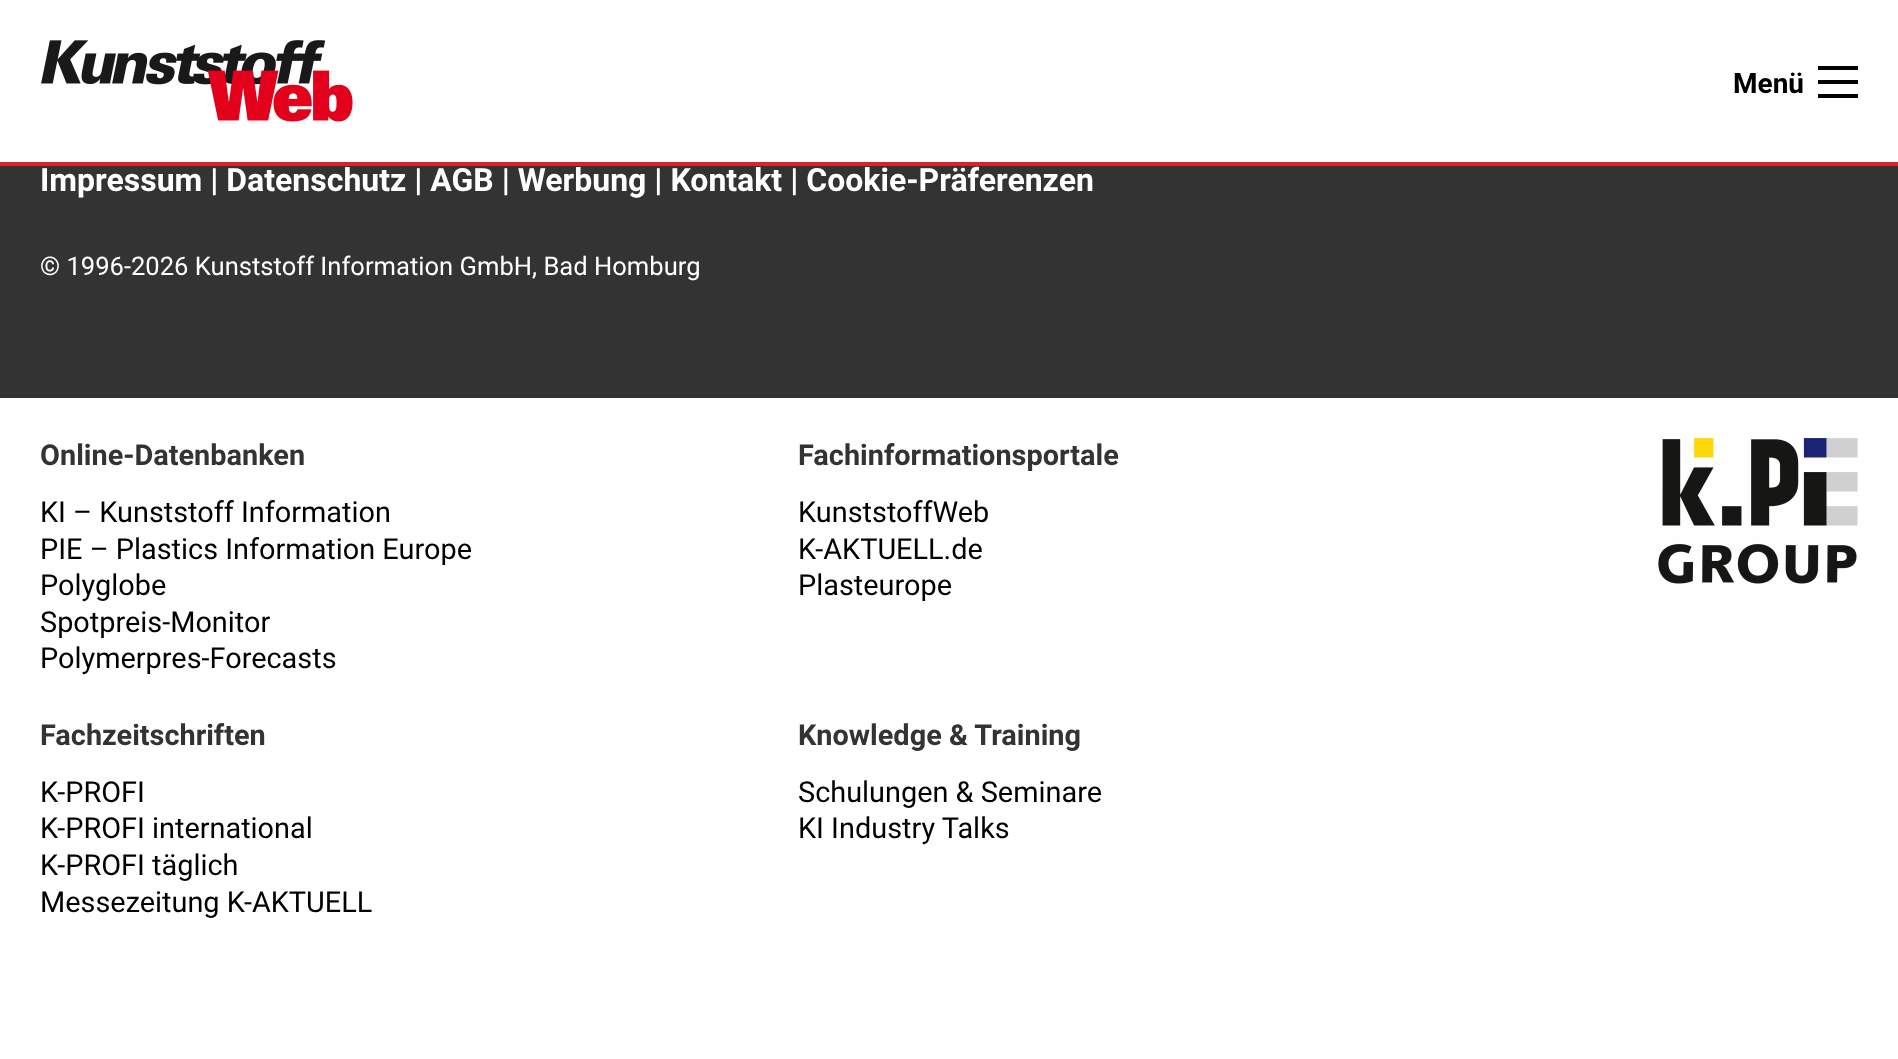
async function draw(canvas) {
  canvas.width = 1898
  canvas.height = 1059
  const ctx = canvas.getContext('2d')
  ctx.miterLimit = 4
  ctx.fontKerning = 'normal'
  async function loadImage(src) {
    const img = new Image()
    img.src = src
    await img.decode()
    return img
  }

  ctx.fillStyle = '#fff'
  ctx.fillRect(0, 0, 1898, 1059)
  ctx.fillStyle = '#d9222a'
  ctx.fillRect(0, 162, 1898, 4)
  ctx.drawImage(await loadImage('image0.png'), 41, 40, 312, 82)
  ctx.font = 'bold 28px Roboto'
  ctx.fillStyle = '#000'
  ctx.fillText('Menü', 1733, 93)
  ctx.fillRect(1818, 94, 40, 4)
  ctx.fillRect(1818, 80, 40, 4)
  ctx.fillRect(1818, 66, 40, 4)
  ctx.fillStyle = '#333'
  ctx.fillRect(0, 166, 1898, 232)
  ctx.font = 'bold 32px Roboto'
  ctx.fillStyle = '#fff'
  ctx.fillText('Impressum | Datenschutz | AGB | Werbung | Kontakt | Cookie-Präferenzen', 40, 191)
  ctx.font = '25.6px Roboto'
  ctx.fillText('© 1996-2026 Kunststoff Information GmbH, Bad Homburg', 40, 275)
  ctx.font = 'bold 28.9px Roboto'
  ctx.fillStyle = '#333'
  ctx.fillText('Online-Datenbanken', 40, 465)
  ctx.font = '28.9px Roboto'
  ctx.fillStyle = '#000'
  ctx.fillText('KI – Kunststoff Information', 40, 522)
  ctx.fillText('PIE – Plastics Information Europe', 40, 559)
  ctx.fillText('Polyglobe', 40, 595)
  ctx.fillText('Spotpreis-Monitor', 40, 632)
  ctx.fillText('Polymerpres-Forecasts', 40, 668)
  ctx.font = 'bold 28.9px Roboto'
  ctx.fillStyle = '#333'
  ctx.fillText('Fachinformationsportale', 798, 465)
  ctx.font = '28.9px Roboto'
  ctx.fillStyle = '#000'
  ctx.fillText('KunststoffWeb', 798, 522)
  ctx.fillText('K-AKTUELL.de', 798, 559)
  ctx.fillText('Plasteurope', 798, 595)
  ctx.font = 'bold 28.9px Roboto'
  ctx.fillStyle = '#333'
  ctx.fillText('Fachzeitschriften', 40, 745)
  ctx.font = '28.9px Roboto'
  ctx.fillStyle = '#000'
  ctx.fillText('K-PROFI', 40, 802)
  ctx.fillText('K-PROFI international', 40, 838)
  ctx.fillText('K-PROFI täglich', 40, 875)
  ctx.fillText('Messezeitung K-AKTUELL', 40, 912)
  ctx.font = 'bold 28.9px Roboto'
  ctx.fillStyle = '#333'
  ctx.fillText('Knowledge & Training', 798, 745)
  ctx.font = '28.9px Roboto'
  ctx.fillStyle = '#000'
  ctx.fillText('Schulungen & Seminare', 798, 802)
  ctx.fillText('KI Industry Talks', 798, 838)
  ctx.drawImage(await loadImage('image1.png'), 1658, 438, 200, 146)
}

draw(document.querySelector('canvas'))
